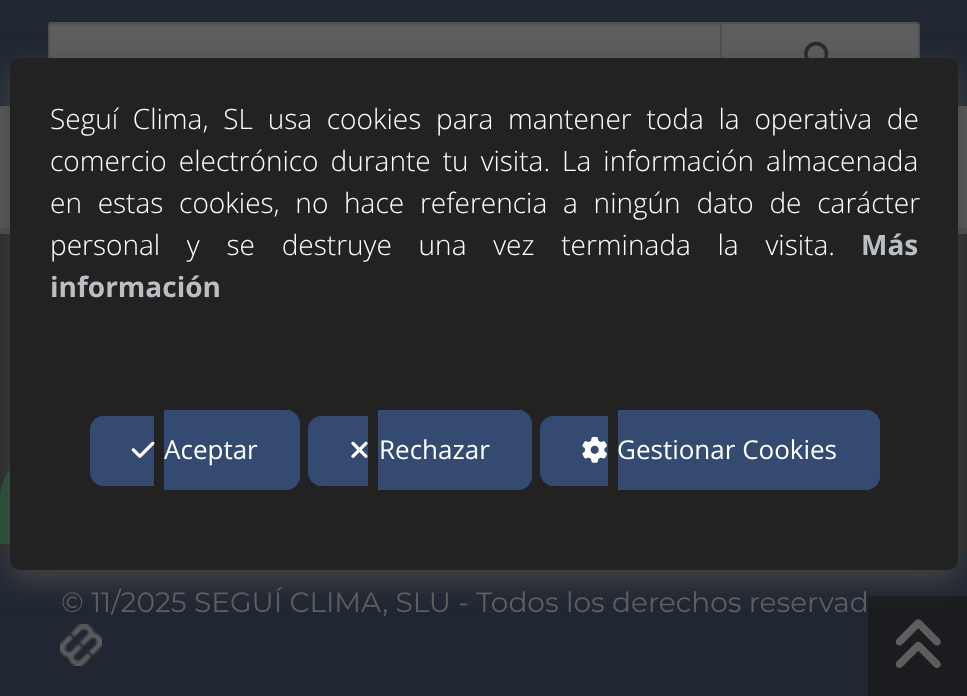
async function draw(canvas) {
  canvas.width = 967
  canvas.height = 696
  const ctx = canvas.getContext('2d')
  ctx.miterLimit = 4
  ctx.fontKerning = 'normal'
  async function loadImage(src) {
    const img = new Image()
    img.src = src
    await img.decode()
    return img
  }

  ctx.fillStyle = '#272727'
  ctx.fillRect(0, 0, 967, 696)
  ctx.fillStyle = '#202733'
  ctx.fillRect(0, 0, 967, 106)
  ctx.fillStyle = '#5e5e5e'
  ctx.beginPath()
  ctx.roundRect(721, 23, 198, 62, [0, 3, 3, 0])
  ctx.fill()
  ctx.strokeStyle = '#505050'
  ctx.lineWidth = 2
  ctx.stroke()
  ctx.beginPath()
  ctx.roundRect(48, 22, 674, 64, [4, 0, 0, 4])
  ctx.fill()
  ctx.fillStyle = '#595959'
  ctx.beginPath()
  ctx.moveTo(52, 26)
  ctx.lineTo(720, 26)
  ctx.lineTo(720, 24)
  ctx.lineTo(52, 24)
  ctx.bezierCurveTo(50, 24, 50, 26, 50, 28)
  ctx.bezierCurveTo(50, 27, 51, 26, 52, 26)
  ctx.closePath()
  ctx.fill()
  ctx.beginPath()
  ctx.roundRect(49, 23, 672, 62, [3, 0, 0, 3])
  ctx.stroke()
  ctx.drawImage(await loadImage('image0.png'), 804, 41, 25, 17)
  ctx.fillStyle = '#235234'
  ctx.beginPath()
  ctx.roundRect(0, 452, 96, 92, [46, 46, 46, 0])
  ctx.fill()
  ctx.fillStyle = '#5e5e5ef2'
  ctx.fillRect(0, 106, 967, 122)
  ctx.fillStyle = '#505050'
  ctx.fillRect(0, 228, 967, 6)
  ctx.fillStyle = '#202733'
  ctx.fillRect(0, 552, 967, 144)
  ctx.drawImage(await loadImage('image4.png'), 60, 624, 42, 42)
  ctx.fillStyle = '#191919bf'
  ctx.fillRect(868, 596, 99, 100)
  ctx.drawImage(await loadImage('image5.png'), 895, 619, 46, 49)
  ctx.fillStyle = '#454545'
  ctx.filter = 'blur(15px)'
  ctx.beginPath()
  ctx.roundRect(10, 68, 948, 512, 10)
  ctx.fill()
  ctx.filter = 'none'
  ctx.fillStyle = '#222'
  ctx.beginPath()
  ctx.roundRect(10, 58, 948, 512, 10)
  ctx.fill()
  ctx.wordSpacing = '7.5px'
  ctx.font = '300 28px Open Sans'
  ctx.fillStyle = '#fff'
  ctx.fillText('Seguí Clima, SL usa cookies para mantener toda la operativa de', 50, 129)
  ctx.wordSpacing = '4.75px'
  ctx.fillText('comercio electrónico durante tu visita. La información almacenada', 50, 171)
  ctx.wordSpacing = '8.5px'
  ctx.fillText('en estas cookies, no hace referencia a ningún dato de carácter', 50, 213)
  ctx.wordSpacing = '19.5px'
  ctx.fillText('personal y se destruye una vez terminada la visita.', 50, 255)
  ctx.wordSpacing = '0px'
  ctx.font = 'bold 28px Open Sans'
  ctx.fillStyle = '#bbbfc3'
  ctx.fillText('Más', 861, 255)
  ctx.fillText('información', 50, 297)
  ctx.fillStyle = '#344a70'
  ctx.beginPath()
  ctx.roundRect(90, 416, 64, 70, [14, 0, 0, 14])
  ctx.fill()
  ctx.beginPath()
  ctx.moveTo(104, 416)
  ctx.lineTo(154, 416)
  ctx.lineTo(154, 486)
  ctx.lineTo(104, 486)
  ctx.bezierCurveTo(96, 486, 90, 479, 90, 472)
  ctx.lineTo(90, 430)
  ctx.bezierCurveTo(90, 422, 96, 416, 104, 416)
  ctx.closePath()
  ctx.moveTo(104, 418)
  ctx.lineTo(154, 418)
  ctx.lineTo(154, 484)
  ctx.lineTo(104, 484)
  ctx.bezierCurveTo(97, 484, 92, 478, 92, 472)
  ctx.lineTo(92, 430)
  ctx.bezierCurveTo(92, 423, 97, 418, 104, 418)
  ctx.closePath()
  ctx.fill('evenodd')
  ctx.beginPath()
  ctx.roundRect(164, 410, 136, 80, [0, 14, 14, 0])
  ctx.fill()
  ctx.beginPath()
  ctx.moveTo(164, 410)
  ctx.lineTo(286, 410)
  ctx.bezierCurveTo(293, 410, 300, 416, 300, 424)
  ctx.lineTo(300, 476)
  ctx.bezierCurveTo(300, 483, 293, 490, 286, 490)
  ctx.lineTo(164, 490)
  ctx.closePath()
  ctx.moveTo(164, 412)
  ctx.lineTo(286, 412)
  ctx.bezierCurveTo(292, 412, 298, 417, 298, 424)
  ctx.lineTo(298, 476)
  ctx.bezierCurveTo(298, 482, 292, 488, 286, 488)
  ctx.lineTo(164, 488)
  ctx.closePath()
  ctx.fill('evenodd')
  ctx.drawImage(await loadImage('image1.png'), 131, 441, 24, 17)
  ctx.font = '26px Open Sans'
  ctx.fillStyle = '#fff'
  ctx.fillText('Aceptar', 164, 459)
  ctx.fillStyle = '#344a70'
  ctx.beginPath()
  ctx.roundRect(308, 416, 60, 70, [14, 0, 0, 14])
  ctx.fill()
  ctx.beginPath()
  ctx.moveTo(322, 416)
  ctx.lineTo(368, 416)
  ctx.lineTo(368, 486)
  ctx.lineTo(322, 486)
  ctx.bezierCurveTo(314, 486, 308, 479, 308, 472)
  ctx.lineTo(308, 430)
  ctx.bezierCurveTo(308, 422, 314, 416, 322, 416)
  ctx.closePath()
  ctx.moveTo(322, 418)
  ctx.lineTo(368, 418)
  ctx.lineTo(368, 484)
  ctx.lineTo(322, 484)
  ctx.bezierCurveTo(315, 484, 310, 478, 310, 472)
  ctx.lineTo(310, 430)
  ctx.bezierCurveTo(310, 423, 315, 418, 322, 418)
  ctx.closePath()
  ctx.fill('evenodd')
  ctx.beginPath()
  ctx.roundRect(378, 410, 154, 80, [0, 14, 14, 0])
  ctx.fill()
  ctx.beginPath()
  ctx.moveTo(378, 410)
  ctx.lineTo(518, 410)
  ctx.bezierCurveTo(525, 410, 532, 416, 532, 424)
  ctx.lineTo(532, 476)
  ctx.bezierCurveTo(532, 483, 525, 490, 518, 490)
  ctx.lineTo(378, 490)
  ctx.closePath()
  ctx.moveTo(378, 412)
  ctx.lineTo(518, 412)
  ctx.bezierCurveTo(524, 412, 530, 417, 530, 424)
  ctx.lineTo(530, 476)
  ctx.bezierCurveTo(530, 482, 524, 488, 518, 488)
  ctx.lineTo(378, 488)
  ctx.closePath()
  ctx.fill('evenodd')
  ctx.drawImage(await loadImage('image2.png'), 351, 441, 17, 17)
  ctx.fillStyle = '#fff'
  ctx.fillText('Rechazar', 379, 459)
  ctx.fillStyle = '#344a70'
  ctx.beginPath()
  ctx.roundRect(540, 416, 68, 70, [14, 0, 0, 14])
  ctx.fill()
  ctx.beginPath()
  ctx.moveTo(554, 416)
  ctx.lineTo(608, 416)
  ctx.lineTo(608, 486)
  ctx.lineTo(554, 486)
  ctx.bezierCurveTo(546, 486, 540, 479, 540, 472)
  ctx.lineTo(540, 430)
  ctx.bezierCurveTo(540, 422, 546, 416, 554, 416)
  ctx.closePath()
  ctx.moveTo(554, 418)
  ctx.lineTo(608, 418)
  ctx.lineTo(608, 484)
  ctx.lineTo(554, 484)
  ctx.bezierCurveTo(547, 484, 542, 478, 542, 472)
  ctx.lineTo(542, 430)
  ctx.bezierCurveTo(542, 423, 547, 418, 554, 418)
  ctx.closePath()
  ctx.fill('evenodd')
  ctx.beginPath()
  ctx.roundRect(618, 410, 262, 80, [0, 14, 14, 0])
  ctx.fill()
  ctx.beginPath()
  ctx.moveTo(618, 410)
  ctx.lineTo(866, 410)
  ctx.bezierCurveTo(873, 410, 880, 416, 880, 424)
  ctx.lineTo(880, 476)
  ctx.bezierCurveTo(880, 483, 873, 490, 866, 490)
  ctx.lineTo(618, 490)
  ctx.closePath()
  ctx.moveTo(618, 412)
  ctx.lineTo(866, 412)
  ctx.bezierCurveTo(872, 412, 878, 417, 878, 424)
  ctx.lineTo(878, 476)
  ctx.bezierCurveTo(878, 482, 872, 488, 866, 488)
  ctx.lineTo(618, 488)
  ctx.closePath()
  ctx.fill('evenodd')
  ctx.drawImage(await loadImage('image3.png'), 582, 436, 25, 27)
  ctx.fillStyle = '#fff'
  ctx.fillText('Gestionar Cookies', 617, 459)
  ctx.font = '28px Montserrat'
  ctx.fillStyle = '#5e5e5e'
  ctx.fillText('© 11/2025 SEGUÍ CLIMA, SLU - Todos los derechos reservad', 61, 612)
}

draw(document.querySelector('canvas'))
